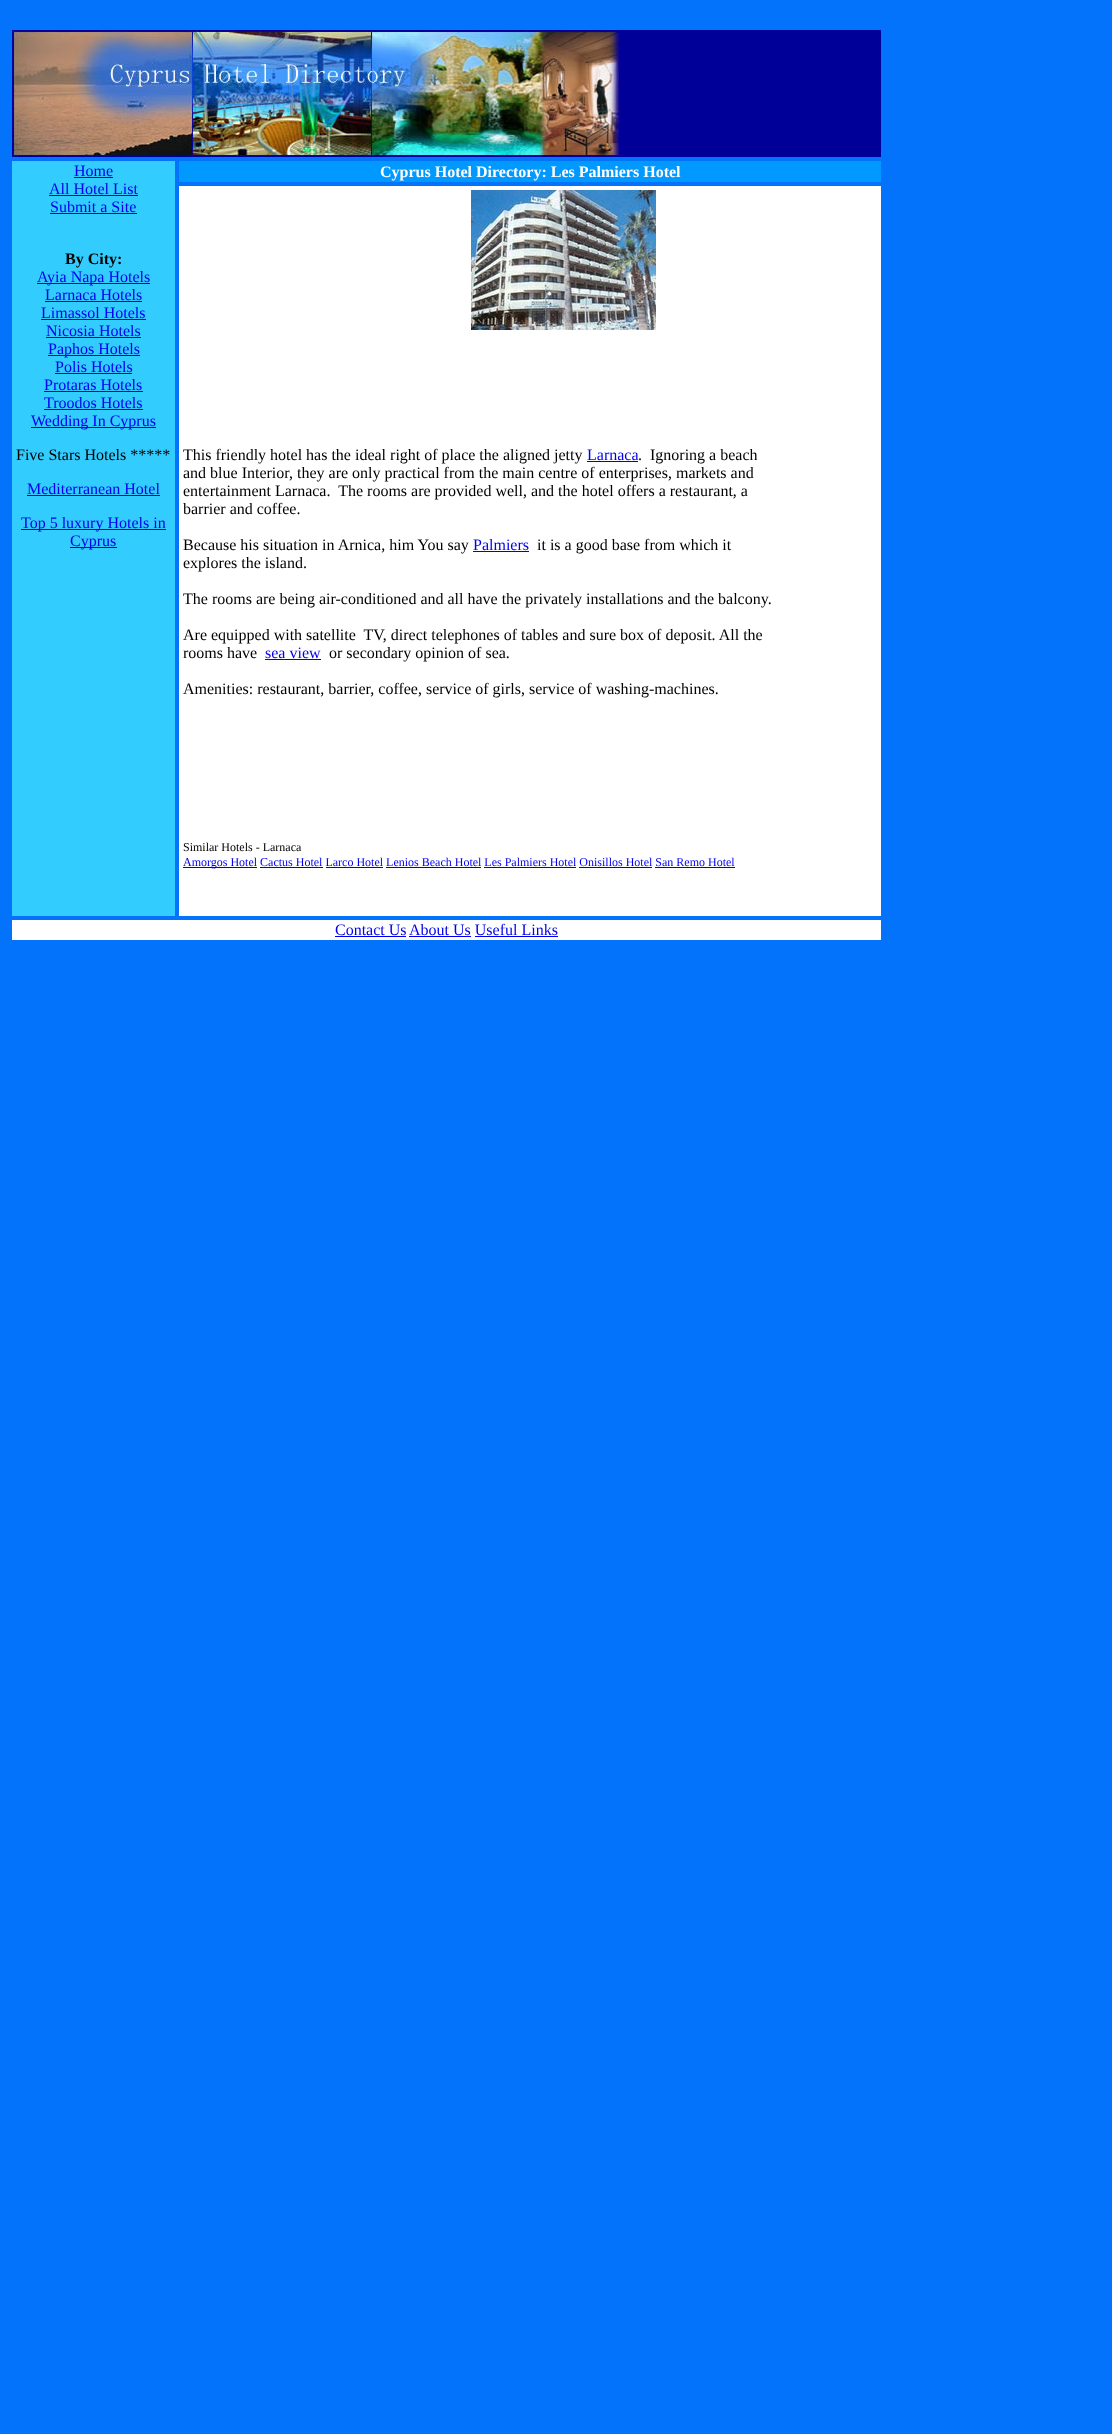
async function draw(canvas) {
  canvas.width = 1112
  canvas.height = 2434
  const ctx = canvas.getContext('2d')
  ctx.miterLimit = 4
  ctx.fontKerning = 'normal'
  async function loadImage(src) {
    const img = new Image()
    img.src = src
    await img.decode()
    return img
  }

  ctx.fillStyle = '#0473fb'
  ctx.fillRect(0, 0, 1112, 2434)
  ctx.fillStyle = '#009'
  ctx.fillRect(12, 30, 869, 127)
  ctx.drawImage(await loadImage('image0.png'), 13, 31, 361, 125)
  ctx.drawImage(await loadImage('image1.png'), 374, 31, 247, 125)
  ctx.fillStyle = '#3cf'
  ctx.fillRect(12, 161, 163, 755)
  ctx.font = '16px Liberation Serif'
  ctx.fillStyle = '#00e'
  ctx.fillText('Home', 74, 176)
  ctx.fillRect(74, 177, 39, 1)
  ctx.fillText('All Hotel List', 49, 194)
  ctx.fillRect(49, 195, 89, 1)
  ctx.fillText('Submit a Site', 50, 212)
  ctx.fillRect(50, 213, 87, 1)
  ctx.font = 'bold 16px Liberation Serif'
  ctx.fillStyle = '#000'
  ctx.fillText('By City:', 65, 264)
  ctx.fillStyle = '#00e'
  ctx.fillRect(37, 283, 113, 1)
  ctx.font = '16px Liberation Serif'
  ctx.fillText('Ayia Napa Hotels', 37, 282)
  ctx.fillText('Larnaca Hotels', 45, 300)
  ctx.fillRect(45, 301, 97, 1)
  ctx.fillText('Limassol Hotels', 41, 318)
  ctx.fillRect(41, 319, 105, 1)
  ctx.fillText('Nicosia Hotels', 46, 336)
  ctx.fillRect(46, 337, 95, 1)
  ctx.fillRect(48, 355, 92, 1)
  ctx.fillText('Paphos Hotels', 48, 354)
  ctx.fillText('Polis Hotels', 55, 372)
  ctx.fillRect(55, 373, 77, 1)
  ctx.fillText('Protaras Hotels', 44, 390)
  ctx.fillRect(44, 391, 99, 1)
  ctx.fillText('Troodos Hotels', 44, 408)
  ctx.fillRect(44, 409, 99, 1)
  ctx.fillRect(31, 427, 125, 1)
  ctx.fillText('Wedding In Cyprus', 31, 426)
  ctx.fillStyle = '#000'
  ctx.fillText('Five Stars Hotels *****', 16, 460)
  ctx.fillStyle = '#00e'
  ctx.fillText('Mediterranean Hotel', 27, 494)
  ctx.fillRect(27, 495, 133, 1)
  ctx.fillRect(21, 529, 145, 1)
  ctx.fillText('Top 5 luxury Hotels in', 21, 528)
  ctx.fillRect(70, 547, 47, 1)
  ctx.fillText('Cyprus', 70, 546)
  ctx.fillStyle = '#09f'
  ctx.fillRect(179, 161, 702, 21)
  ctx.font = 'bold 16px Liberation Serif'
  ctx.fillStyle = '#fff'
  ctx.fillText('Cyprus Hotel Directory: Les Palmiers Hotel', 380, 177)
  ctx.fillRect(179, 186, 702, 730)
  ctx.drawImage(await loadImage('image2.png'), 471, 190, 185, 140)
  ctx.font = '16px Liberation Serif'
  ctx.fillStyle = '#000'
  ctx.fillText('This friendly hotel has the ideal right of place the aligned jetty', 183, 460)
  ctx.fillStyle = '#00e'
  ctx.fillText('Larnaca', 587, 460)
  ctx.fillRect(587, 461, 51, 1)
  ctx.fillStyle = '#000'
  ctx.fillText('.', 638, 460)
  ctx.fillText('Ignoring a beach', 650, 460)
  ctx.fillText('and blue Interior, they are only practical from the main centre of enterprises, markets and', 183, 478)
  ctx.fillText('entertainment Larnaca.  The rooms are provided well, and the hotel offers a restaurant, a', 183, 496)
  ctx.fillText('barrier and coffee.', 183, 514)
  ctx.fillText('Because his situation in Arnica, him You say', 183, 550)
  ctx.fillStyle = '#00e'
  ctx.fillText('Palmiers', 473, 550)
  ctx.fillRect(473, 551, 56, 1)
  ctx.fillStyle = '#000'
  ctx.fillText('it is a good base from which it', 537, 550)
  ctx.fillText('explores the island.', 183, 568)
  ctx.fillText('The rooms are being air-conditioned and all have the privately installations and the balcony.', 183, 604)
  ctx.fillText('Are equipped with satellite  TV, direct telephones of tables and sure box of deposit. All the', 183, 640)
  ctx.fillText('rooms have', 183, 658)
  ctx.fillStyle = '#00e'
  ctx.fillText('sea view', 265, 658)
  ctx.fillRect(265, 659, 56, 1)
  ctx.fillStyle = '#000'
  ctx.fillText('or secondary opinion of sea.', 329, 658)
  ctx.fillText('Amenities: restaurant, barrier, coffee, service of girls, service of washing-machines.', 183, 694)
  ctx.font = '12px Liberation Serif'
  ctx.fillText('Similar Hotels - Larnaca', 183, 851)
  ctx.fillStyle = '#00e'
  ctx.fillRect(183, 867, 74, 1)
  ctx.fillText('Amorgos Hotel Cactus Hotel Larco Hotel Lenios Beach Hotel Les Palmiers Hotel Onisillos Hotel San Remo Hotel', 183, 866)
  ctx.fillRect(260, 867, 63, 1)
  ctx.fillRect(326, 867, 57, 1)
  ctx.fillRect(386, 867, 95, 1)
  ctx.fillRect(484, 867, 92, 1)
  ctx.fillRect(579, 867, 73, 1)
  ctx.fillRect(655, 867, 80, 1)
  ctx.fillStyle = '#fff'
  ctx.fillRect(12, 920, 869, 20)
  ctx.font = '16px Liberation Serif'
  ctx.fillStyle = '#00e'
  ctx.fillText('Contact Us', 335, 935)
  ctx.fillRect(335, 936, 71, 1)
  ctx.fillText('About Us Useful Links', 409, 935)
  ctx.fillRect(409, 936, 62, 1)
  ctx.fillRect(475, 936, 83, 1)
}

draw(document.querySelector('canvas'))
